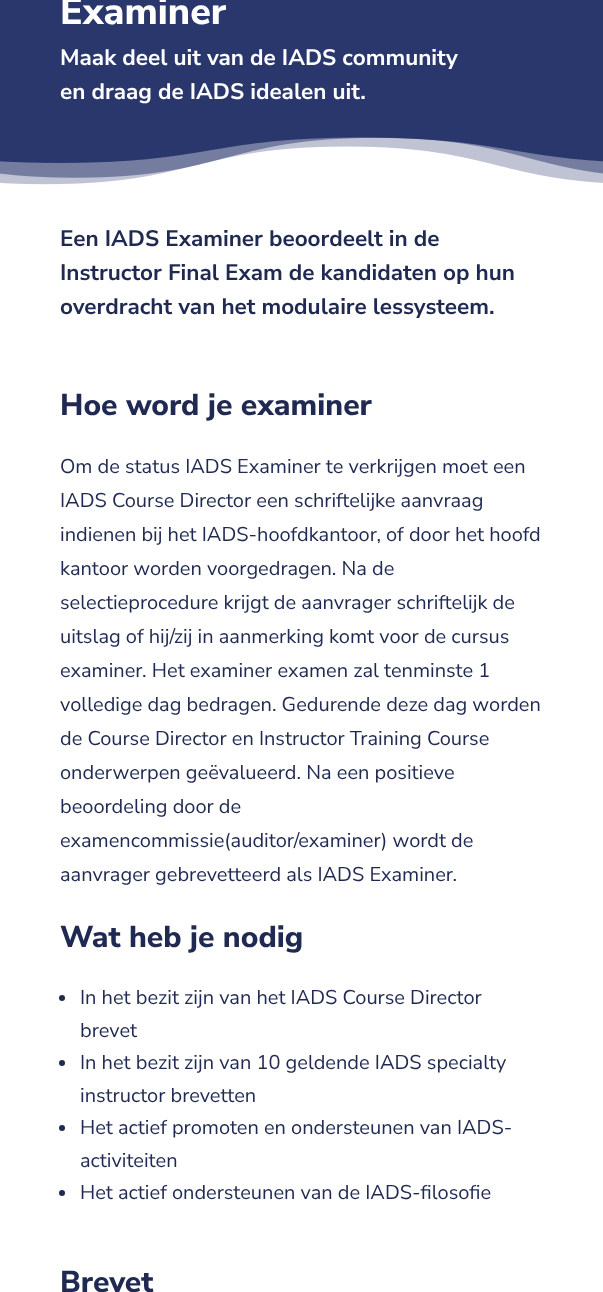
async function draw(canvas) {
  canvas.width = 603
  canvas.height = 1292
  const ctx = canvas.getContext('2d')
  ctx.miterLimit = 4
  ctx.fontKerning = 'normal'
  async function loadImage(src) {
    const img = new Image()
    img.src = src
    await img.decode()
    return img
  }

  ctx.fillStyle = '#fff'
  ctx.fillRect(0, 0, 603, 1292)
  ctx.fillStyle = '#29376d'
  ctx.fillRect(0, 0, 603, 123)
  ctx.font = '200 37.5px "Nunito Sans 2"'
  ctx.fillStyle = '#fff'
  ctx.fillText('Examiner', 60, 24)
  ctx.font = '200 22.5px Nunito Sans'
  ctx.fillText('Maak deel uit van de IADS community', 60, 65)
  ctx.fillText('en draag de IADS idealen uit.', 60, 99)
  ctx.drawImage(await loadImage('image0.png'), 0, 123, 603, 62)
  ctx.fillStyle = '#1f2951'
  ctx.fillText('Een IADS Examiner beoordeelt in de', 60, 246)
  ctx.fillText('Instructor Final Exam de kandidaten op hun', 60, 280)
  ctx.fillText('overdracht van het modulaire lessysteem.', 60, 314)
  ctx.font = '200 30px "Nunito Sans 2"'
  ctx.fillText('Hoe word je examiner', 60, 415)
  ctx.font = '200 20px "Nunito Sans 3"'
  ctx.fillText('Om de status IADS Examiner te verkrijgen moet een', 60, 473)
  ctx.fillText('IADS Course Director een schriftelijke aanvraag', 60, 507)
  ctx.fillText('indienen bij het IADS-hoofdkantoor, of door het hoofd', 60, 541)
  ctx.fillText('kantoor worden voorgedragen. Na de', 60, 575)
  ctx.fillText('selectieprocedure krijgt de aanvrager schriftelijk de', 60, 609)
  ctx.fillText('uitslag of hij/zij in aanmerking komt voor de cursus', 60, 643)
  ctx.fillText('examiner. Het examiner examen zal tenminste 1', 60, 677)
  ctx.fillText('volledige dag bedragen. Gedurende deze dag worden', 60, 711)
  ctx.fillText('de Course Director en Instructor Training Course', 60, 745)
  ctx.fillText('onderwerpen geëvalueerd. Na een positieve', 60, 779)
  ctx.fillText('beoordeling door de', 60, 813)
  ctx.fillText('examencommissie(auditor/examiner) wordt de', 60, 847)
  ctx.fillText('aanvrager gebrevetteerd als IADS Examiner.', 60, 881)
  ctx.font = '200 30px "Nunito Sans 2"'
  ctx.fillText('Wat heb je nodig', 60, 947)
  ctx.beginPath()
  ctx.arc(62, 998, 3, 0, 2 * Math.PI)
  ctx.fill()
  ctx.font = '200 20px "Nunito Sans 3"'
  ctx.fillText('In het bezit zijn van het IADS Course Director', 80, 1004)
  ctx.fillText('brevet', 80, 1037)
  ctx.beginPath()
  ctx.arc(62, 1063, 3, 0, 2 * Math.PI)
  ctx.fill()
  ctx.fillText('In het bezit zijn van 10 geldende IADS specialty', 80, 1069)
  ctx.fillText('instructor brevetten', 80, 1102)
  ctx.beginPath()
  ctx.arc(62, 1128, 3, 0, 2 * Math.PI)
  ctx.fill()
  ctx.fillText('Het actief promoten en ondersteunen van IADS-', 80, 1134)
  ctx.fillText('activiteiten', 80, 1167)
  ctx.beginPath()
  ctx.arc(62, 1193, 3, 0, 2 * Math.PI)
  ctx.fill()
  ctx.fillText('Het actief ondersteunen van de IADS-filosofie', 80, 1199)
  ctx.font = '200 30px "Nunito Sans 2"'
  ctx.fillText('Brevet', 60, 1292)
}

draw(document.querySelector('canvas'))
